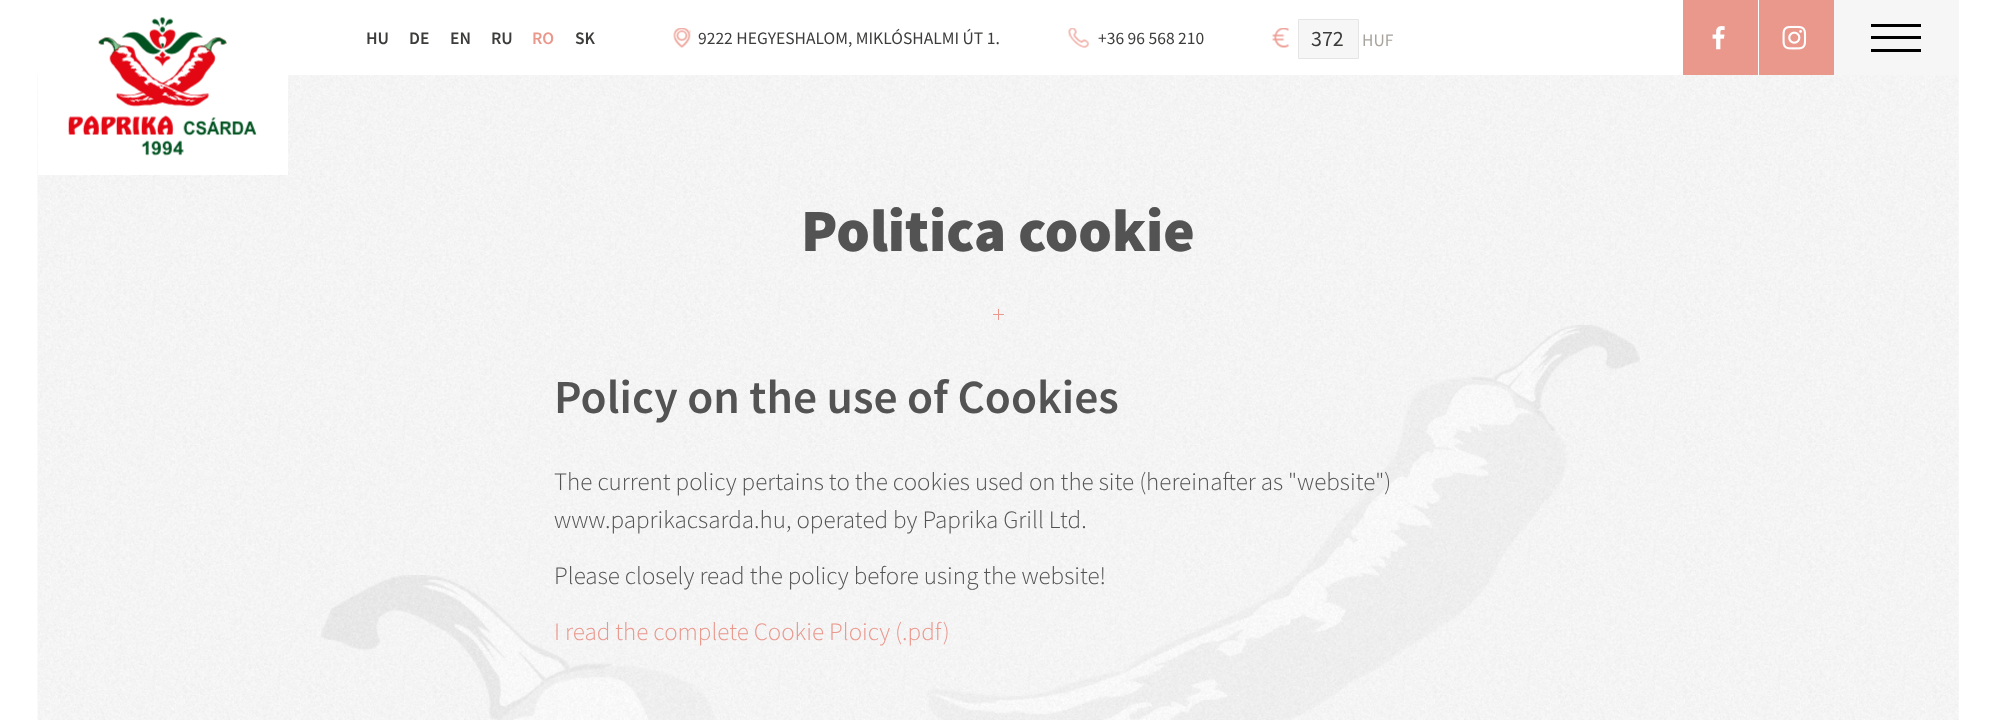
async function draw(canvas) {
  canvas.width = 1996
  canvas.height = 720
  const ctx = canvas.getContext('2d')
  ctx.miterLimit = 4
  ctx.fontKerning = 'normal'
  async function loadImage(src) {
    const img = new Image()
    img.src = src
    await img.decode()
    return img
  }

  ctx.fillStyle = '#fff'
  ctx.fillRect(0, 0, 1996, 720)
  ctx.drawImage(await loadImage('image6.png'), 37, 75, 1922, 645)
  ctx.fillRect(38, 75, 250, 100)
  ctx.drawImage(await loadImage('image0.png'), 68, 17, 189, 139)
  ctx.font = '600 17.5px Source Sans Pro'
  ctx.fillStyle = '#3c3c3b'
  ctx.fillText('HU', 366, 44)
  ctx.fillText('DE', 409, 44)
  ctx.fillText('EN', 450, 44)
  ctx.fillText('RU', 491, 44)
  ctx.fillStyle = '#ea978c'
  ctx.fillText('RO', 532, 44)
  ctx.fillStyle = '#3c3c3b'
  ctx.fillText('SK', 575, 44)
  ctx.drawImage(await loadImage('image1.png'), 673, 28, 18, 20)
  ctx.font = '17.5px Source Sans Pro'
  ctx.fillText('9222 HEGYESHALOM, MIKLÓSHALMI ÚT 1.', 698, 44)
  ctx.drawImage(await loadImage('image2.png'), 1068, 28, 21, 20)
  ctx.fillText('+36 96 568 210', 1098, 44)
  ctx.drawImage(await loadImage('image3.png'), 1272, 28, 17, 20)
  ctx.fillStyle = '#f6f6f6'
  ctx.beginPath()
  ctx.rect(1298.5, 19.5, 60, 39)
  ctx.fill()
  ctx.strokeStyle = '#e5e5e5'
  ctx.stroke()
  ctx.font = '22px Source Sans Pro'
  ctx.fillStyle = '#3c3c3b'
  ctx.fillText('372', 1311, 46)
  ctx.font = '17.5px Source Sans Pro'
  ctx.fillStyle = '#a8a39d'
  ctx.fillText('HUF', 1362, 46)
  ctx.fillStyle = '#ea978c'
  ctx.fillRect(1683, 0, 75, 75)
  ctx.drawImage(await loadImage('image4.png'), 1712, 26, 13, 24)
  ctx.fillRect(1759, 0, 75, 75)
  ctx.drawImage(await loadImage('image5.png'), 1782, 25, 25, 25)
  ctx.fillStyle = '#f6f6f6'
  ctx.fillRect(1834, 0, 125, 75)
  ctx.fillStyle = '#000'
  ctx.fillRect(1871, 36, 50, 3)
  ctx.fillRect(1871, 24, 50, 3)
  ctx.fillRect(1871, 49, 50, 3)
  ctx.drawImage(await loadImage('image7.png'), 321, 575, 394, 145)
  ctx.drawImage(await loadImage('image8.png'), 927, 325, 713, 395)
  ctx.font = '900 60px Source Sans Pro'
  ctx.fillStyle = '#535353'
  ctx.fillText('Politica cookie', 801, 251)
  ctx.fillStyle = '#ea978c'
  ctx.fillRect(993, 314, 11, 1)
  ctx.fillRect(998, 309, 1, 11)
  ctx.font = '600 47.5px Source Sans Pro'
  ctx.fillStyle = '#535353'
  ctx.fillText('Policy on the use of Cookies', 554, 413)
  ctx.font = '300 25px Source Sans Pro'
  ctx.fillText('The current policy pertains to the cookies used on the site (hereinafter as "website")', 554, 490)
  ctx.fillText('www.paprikacsarda.hu, operated by Paprika Grill Ltd.', 554, 528)
  ctx.fillText('Please closely read the policy before using the website!', 554, 584)
  ctx.fillStyle = '#ea978c'
  ctx.fillText('I read the complete Cookie Ploicy (.pdf)', 554, 640)
}

draw(document.querySelector('canvas'))
